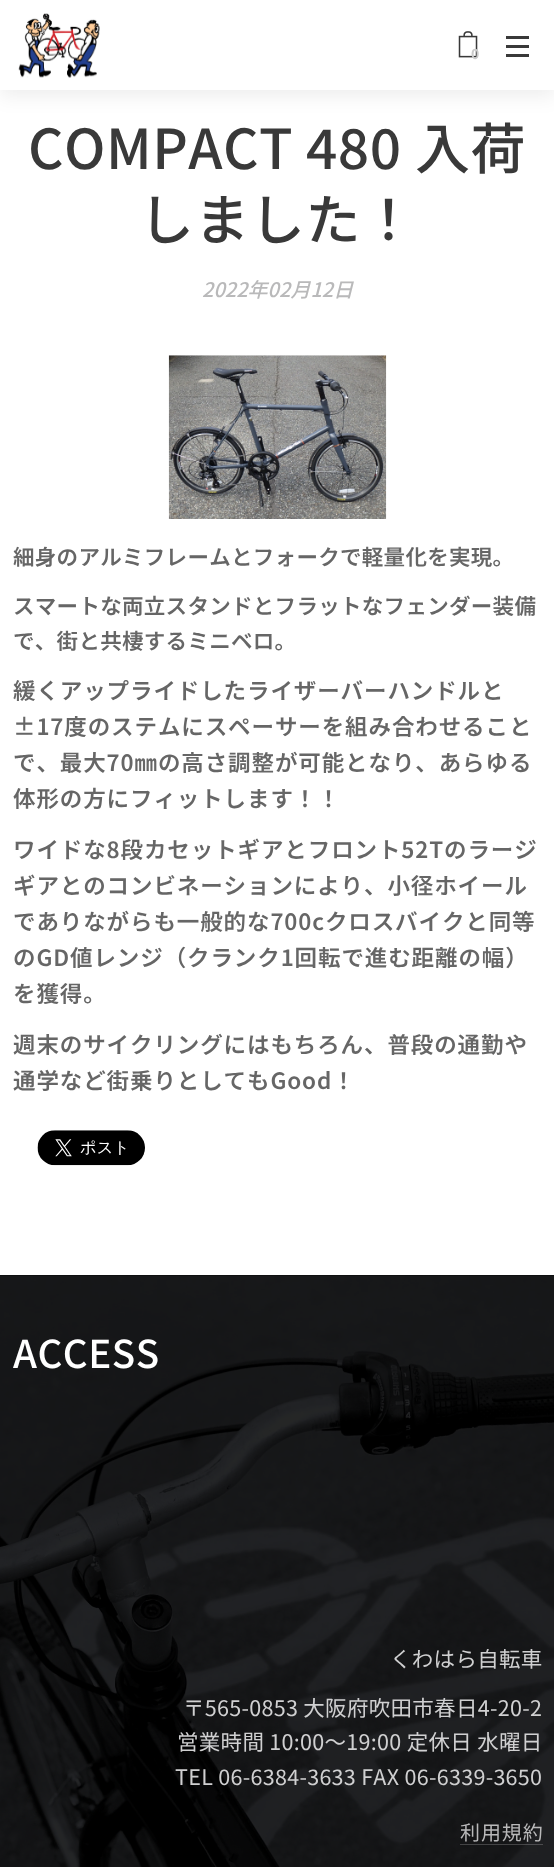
async function draw(canvas) {
  canvas.width = 554
  canvas.height = 1867
  const ctx = canvas.getContext('2d')
  ctx.miterLimit = 4
  ctx.fontKerning = 'none'
  async function loadImage(src) {
    const img = new Image()
    img.src = src
    await img.decode()
    return img
  }

  ctx.fillStyle = '#fff'
  ctx.fillRect(0, 0, 554, 1867)
  ctx.fillStyle = '#00000012'
  ctx.filter = 'blur(9.5px)'
  ctx.beginPath()
  ctx.rect(0, 6, 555, 90)
  ctx.fill()
  ctx.filter = 'none'
  ctx.fillStyle = '#fff'
  ctx.fillRect(0, 0, 554, 90)
  ctx.drawImage(await loadImage('image0.png'), 18, 13, 82, 65)
  ctx.drawImage(await loadImage('image1.png'), 458, 31, 20, 27)
  ctx.font = 'bold 14px Noto Sans JP'
  ctx.fillStyle = '#cacaca'
  ctx.fillText('0', 471, 59)
  ctx.fillStyle = '#393939'
  ctx.fillRect(506, 45, 23, 3)
  ctx.fillRect(506, 36, 23, 3)
  ctx.fillRect(506, 54, 23, 3)
  ctx.letterSpacing = '0.5px'
  ctx.font = '500 55px Noto Sans JP'
  ctx.fillText('COMPACT 480', 28, 169)
  ctx.fillText('入荷', 415, 169)
  ctx.fillText('しました！', 139, 240)
  ctx.letterSpacing = '0px'
  ctx.font = 'italic 500 20px Noto Sans JP'
  ctx.fillStyle = '#b9b9ba'
  ctx.fillText('2022年02月12日', 202, 297)
  ctx.drawImage(await loadImage('image2.png'), 168, 355, 219, 164)
  ctx.letterSpacing = '0.3px'
  ctx.font = '600 21.5px Noto Sans JP'
  ctx.fillStyle = '#666'
  ctx.fillText('細身のアルミフレームとフォークで軽量化を実現。', 13, 565)
  ctx.fillText('スマートな両立スタンドとフラットなフェンダー装備', 13, 614)
  ctx.fillText('で、街と共棲するミニベロ。', 13, 649)
  ctx.letterSpacing = '0.9px'
  ctx.font = '600 22.5px Noto Sans JP'
  ctx.fillText('緩くアップライドしたライザーバーハンドルと', 13, 699)
  ctx.fillText('±17度のステムにスペーサーを組み合わせること', 13, 735)
  ctx.fillText('で、最大70㎜の高さ調整が可能となり、あらゆる', 13, 771)
  ctx.fillText('体形の方にフィットします！！', 13, 807)
  ctx.fillText('ワイドな8段カセットギアとフロント52Tのラージ', 13, 858)
  ctx.fillText('ギアとのコンビネーションにより、小径ホイール', 13, 894)
  ctx.fillText('でありながらも一般的な700cクロスバイクと同等', 13, 930)
  ctx.fillText('のGD値レンジ（クランク1回転で進む距離の幅）', 13, 966)
  ctx.fillText('を獲得。', 13, 1002)
  ctx.fillText('週末のサイクリングにはもちろん、普段の通勤や', 13, 1053)
  ctx.fillText('通学など街乗りとしてもGood！', 13, 1089)
  ctx.drawImage(await loadImage('image3.png'), 37, 1130, 108, 36)
  ctx.fillStyle = '#060606'
  ctx.fillRect(0, 1275, 554, 1)
  ctx.drawImage(await loadImage('image4.png'), 0, 1275, 554, 592)
  ctx.letterSpacing = '0.5px'
  ctx.font = '500 38.5px Noto Sans JP'
  ctx.fillStyle = '#fff'
  ctx.fillText('ACCESS', 13, 1368)
  ctx.letterSpacing = '0.3px'
  ctx.font = '21.5px Noto Sans JP'
  ctx.fillStyle = '#d0d0d1'
  ctx.fillText('くわはら自転車', 390, 1667)
  ctx.fillText('〒565-0853 大阪府吹田市春日4-20-2', 183, 1716)
  ctx.fillText('営業時間 10:00～19:00 定休日 水曜日', 177, 1750)
  ctx.fillText('TEL 06-6384-3633 FAX 06-6339-3650', 175, 1785)
  ctx.letterSpacing = '0.9px'
  ctx.font = '20px Noto Sans JP'
  ctx.fillStyle = '#b9b9ba'
  ctx.fillText('利用規約', 460, 1840)
  ctx.fillStyle = '#ffffff33'
  ctx.fillRect(460, 1844, 83, 1)
}

draw(document.querySelector('canvas'))
